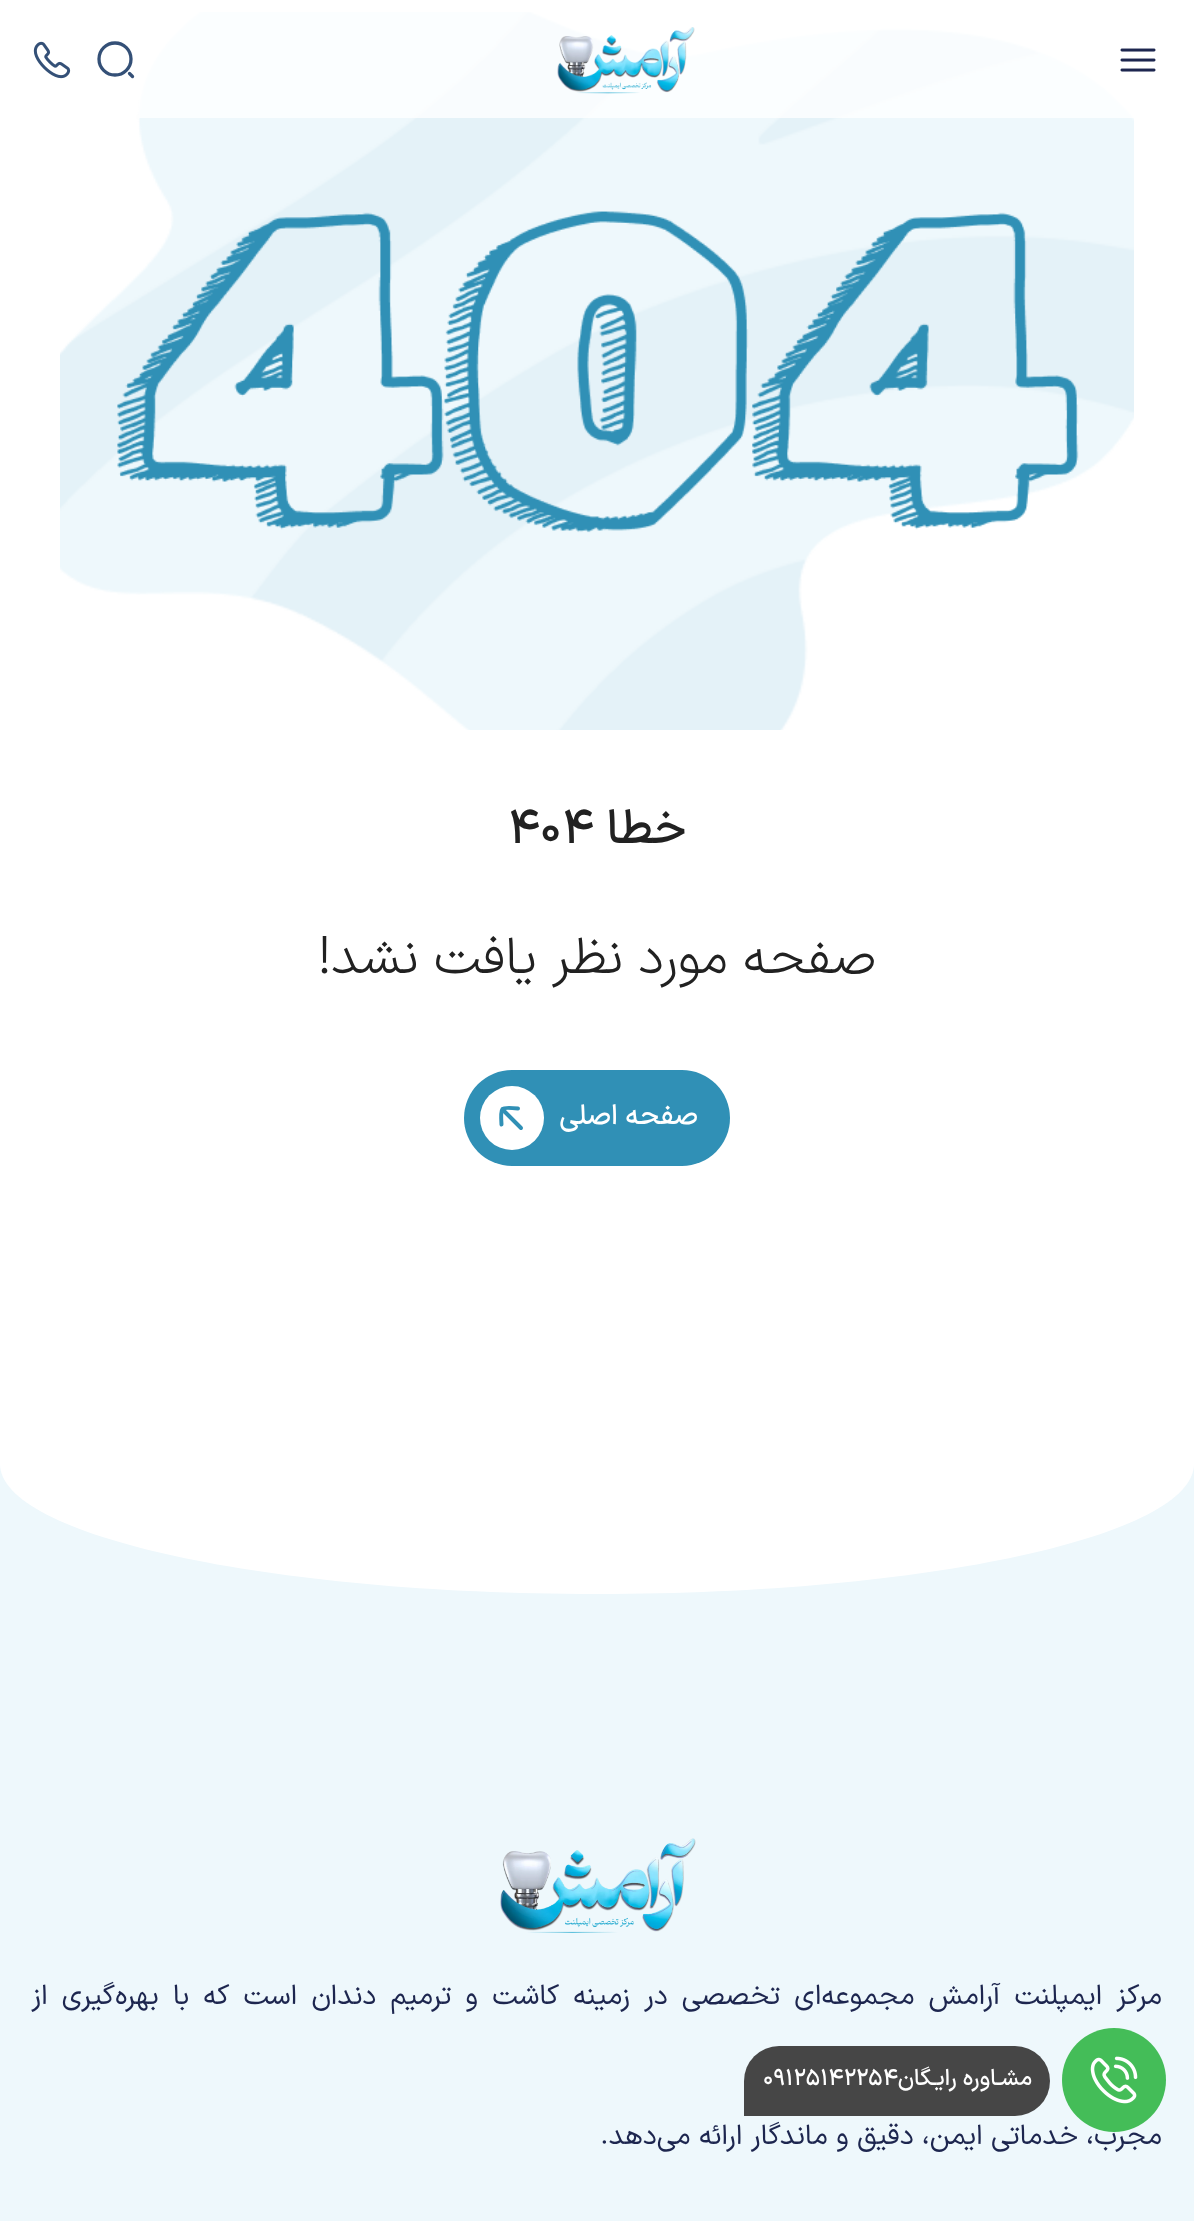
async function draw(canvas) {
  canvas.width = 1194
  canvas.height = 2221
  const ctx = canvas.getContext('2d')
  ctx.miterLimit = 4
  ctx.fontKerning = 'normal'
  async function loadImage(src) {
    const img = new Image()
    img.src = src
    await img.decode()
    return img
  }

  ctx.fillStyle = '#fff'
  ctx.fillRect(0, 0, 1194, 2221)
  ctx.drawImage(await loadImage('image3.png'), 60, 12, 1074, 718)
  ctx.fillStyle = '#ffffffc4'
  ctx.fillRect(139, 12, 995, 106)
  ctx.drawImage(await loadImage('image0.png'), 1120, 48, 36, 24)
  ctx.drawImage(await loadImage('image1.png'), 557, 27, 138, 67)
  ctx.save()
  ctx.beginPath()
  ctx.rect(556, 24, 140, 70)
  ctx.clip()
  ctx.fillStyle = '#ffffffb8'
  ctx.filter = 'blur(20px)'
  ctx.beginPath()
  ctx.rect(706, 6, 20, 92)
  ctx.fill()
  ctx.filter = 'none'
  ctx.restore()
  ctx.beginPath()
  ctx.arc(115, 59, 16, 0, 2 * Math.PI)
  ctx.strokeStyle = '#345077'
  ctx.lineWidth = 3.3
  ctx.stroke()
  ctx.beginPath()
  ctx.moveTo(129.5, 73.5)
  ctx.lineTo(132.5, 76.5)
  ctx.lineCap = 'round'
  ctx.stroke()
  ctx.drawImage(await loadImage('image2.png'), 33, 41, 38, 38)
  ctx.drawImage(await loadImage('image4.png'), 117, 211, 962, 322)
  ctx.direction = 'rtl'
  ctx.font = '500 48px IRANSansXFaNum'
  ctx.fillStyle = '#212121'
  ctx.fillText('خطا', 686, 843)
  ctx.direction = 'ltr'
  ctx.fillText('404', 508, 843)
  ctx.direction = 'rtl'
  ctx.font = '300 52px IRANSansXFaNum'
  ctx.fillText('صفحه مورد نظر یافت نشد!', 876, 973)
  ctx.fillStyle = '#3090b6'
  ctx.beginPath()
  ctx.roundRect(464, 1070, 266, 96, 48)
  ctx.fill()
  ctx.font = '500 28px IRANSansXFaNum'
  ctx.fillStyle = '#fff'
  ctx.fillText('صفحه اصلی', 698, 1124)
  ctx.beginPath()
  ctx.arc(512, 1118, 32, 0, 2 * Math.PI)
  ctx.fill()
  ctx.beginPath()
  ctx.moveTo(503.5, 1110.5)
  ctx.lineTo(521, 1128)
  ctx.strokeStyle = '#3090b6'
  ctx.lineWidth = 4
  ctx.stroke()
  ctx.beginPath()
  ctx.moveTo(518, 1108.5)
  ctx.bezierCurveTo(518, 1108.5, 504.5, 1107, 502.5, 1109)
  ctx.bezierCurveTo(500.5, 1111.5, 501.5, 1124.5, 501.5, 1124.5)
  ctx.lineJoin = 'round'
  ctx.stroke()
  ctx.fillStyle = '#eef8fc'
  ctx.fillRect(0, 1464, 1194, 757)
  ctx.fillStyle = '#fff'
  ctx.beginPath()
  ctx.moveTo(0, 1334)
  ctx.lineTo(1194, 1334)
  ctx.lineTo(1194, 1464)
  ctx.bezierCurveTo(1194, 1536, 927, 1594, 597, 1594)
  ctx.bezierCurveTo(267, 1594, 0, 1536, 0, 1464)
  ctx.closePath()
  ctx.fill()
  ctx.drawImage(await loadImage('image5.png'), 500, 1838, 196, 95)
  ctx.wordSpacing = '5.75px'
  ctx.font = '28px IRANSansXFaNum'
  ctx.fillStyle = '#1d264f'
  ctx.fillText('مرکز ایمپلنت آرامش مجموعه‌ای تخصصی در زمینه کاشت و ترمیم دندان است که با بهره‌گیری از', 1162, 2004)
  ctx.wordSpacing = '0px'
  ctx.fillText('مجرب، خدماتی ایمن، دقیق و ماندگار ارائه می‌دهد.', 1162, 2144)
  ctx.fillStyle = '#44bd58'
  ctx.beginPath()
  ctx.arc(1114, 2080, 52, 0, 2 * Math.PI)
  ctx.fill()
  ctx.drawImage(await loadImage('image6.png'), 1090, 2056, 48, 48)
  ctx.fillStyle = '#464646'
  ctx.beginPath()
  ctx.roundRect(744, 2046, 306, 70, [35, 35, 35, 0])
  ctx.fill()
  ctx.font = '500 23px IRANSansXFaNum'
  ctx.fillStyle = '#fff'
  ctx.fillText('مشـاوره رایـگان', 1032, 2085)
  ctx.direction = 'ltr'
  ctx.fillText('09125142254', 763, 2085)
}

draw(document.querySelector('canvas'))
